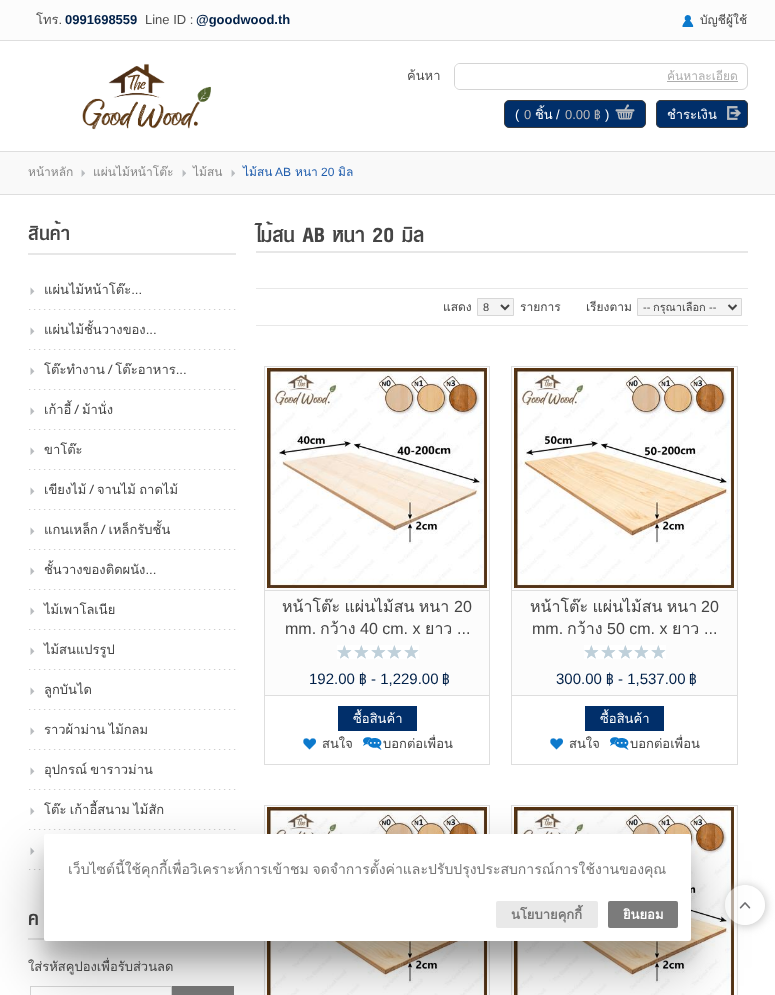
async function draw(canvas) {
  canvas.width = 775
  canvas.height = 995
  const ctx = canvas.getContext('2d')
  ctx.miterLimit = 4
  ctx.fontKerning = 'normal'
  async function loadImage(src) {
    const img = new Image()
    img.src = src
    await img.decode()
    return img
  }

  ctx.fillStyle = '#fff'
  ctx.fillRect(0, 0, 775, 995)
  ctx.fillStyle = '#fcfcfc'
  ctx.fillRect(0, 0, 775, 40)
  ctx.fillStyle = '#dedede'
  ctx.fillRect(0, 40, 775, 1)
  ctx.font = '13px Loma'
  ctx.fillStyle = '#505050'
  ctx.fillText('โทร.', 36, 24)
  ctx.font = 'bold 13px Liberation Sans'
  ctx.fillStyle = '#012048'
  ctx.fillText('0991698559', 65, 24)
  ctx.font = '13px Liberation Sans'
  ctx.fillStyle = '#505050'
  ctx.fillText('Line ID :', 145, 24)
  ctx.font = 'bold 13px Liberation Sans'
  ctx.fillStyle = '#012048'
  ctx.fillText('@goodwood.th', 196, 24)
  ctx.drawImage(await loadImage('image0.png'), 682, 15, 12, 12)
  ctx.font = '12px Loma'
  ctx.fillStyle = '#454545'
  ctx.fillText('บัญชีผู้ใช้', 700, 24)
  ctx.drawImage(await loadImage('image1.png'), 82, 63, 129, 67)
  ctx.font = '13px Loma'
  ctx.fillStyle = '#505050'
  ctx.fillText('ค้นหา', 407, 80)
  ctx.beginPath()
  ctx.roundRect(454.5, 63.5, 293, 26, 5.5)
  ctx.strokeStyle = '#d4d4d4'
  ctx.stroke()
  ctx.fillStyle = '#fff'
  ctx.beginPath()
  ctx.roundRect(455, 64, 169, 25, [5, 0, 0, 5])
  ctx.fill()
  ctx.font = '12px Loma'
  ctx.fillStyle = '#adadad'
  ctx.fillText('ค้นหาละเอียด', 667, 80)
  ctx.fillRect(667, 81, 71, 1)
  ctx.fillStyle = '#012f6a'
  ctx.beginPath()
  ctx.roundRect(504.5, 100.5, 141, 27, 4.5)
  ctx.fill()
  ctx.strokeStyle = '#3b3b3b'
  ctx.stroke()
  ctx.font = '13px Liberation Sans'
  ctx.fillStyle = '#fff'
  ctx.fillText('(', 515, 119)
  ctx.fillStyle = '#bbb8b8'
  ctx.fillText('0', 524, 119)
  ctx.font = '13px Loma'
  ctx.fillStyle = '#fff'
  ctx.fillText('ชิ้น', 535, 119)
  ctx.font = '13px Liberation Sans'
  ctx.fillText('/', 556, 119)
  ctx.fillStyle = '#bbb8b8'
  ctx.fillText('0.00', 565, 119)
  ctx.font = '13px Carlito'
  ctx.fillText('฿', 594, 119)
  ctx.font = '13px Liberation Sans'
  ctx.fillStyle = '#fff'
  ctx.fillText(')', 605, 119)
  ctx.drawImage(await loadImage('image2.png'), 615, 104, 20, 16)
  ctx.fillStyle = '#012f6a'
  ctx.beginPath()
  ctx.roundRect(656, 100, 92, 28, 5)
  ctx.fill()
  ctx.drawImage(await loadImage('image3.png'), 727, 106, 14, 14)
  ctx.beginPath()
  ctx.roundRect(656.5, 100.5, 91, 27, 4.5)
  ctx.stroke()
  ctx.font = '13px Loma'
  ctx.fillStyle = '#fff'
  ctx.fillText('ชำระเงิน', 667, 119)
  ctx.fillStyle = '#f9f9f9'
  ctx.fillRect(0, 152, 775, 42)
  ctx.fillStyle = '#dedede'
  ctx.fillRect(0, 151, 775, 1)
  ctx.fillRect(0, 194, 775, 1)
  ctx.font = '12px Loma'
  ctx.fillStyle = '#888'
  ctx.fillText('หน้าหลัก', 28, 176)
  ctx.drawImage(await loadImage('image4.png'), 81, 169, 4, 8)
  ctx.fillText('แผ่นไม้หน้าโต๊ะ', 93, 176)
  ctx.drawImage(await loadImage('image4.png'), 182, 169, 4, 8)
  ctx.fillText('ไม้สน', 193, 176)
  ctx.drawImage(await loadImage('image4.png'), 231, 169, 4, 8)
  ctx.fillStyle = '#215ead'
  ctx.fillText('ไม้สน', 243, 176)
  ctx.font = '12px Liberation Sans'
  ctx.fillText('AB', 275, 176)
  ctx.font = '12px Loma'
  ctx.fillText('หนา', 295, 176)
  ctx.font = '12px Liberation Sans'
  ctx.fillText('20', 321, 176)
  ctx.font = '12px Loma'
  ctx.fillText('มิล', 338, 176)
  ctx.fillStyle = '#e7e7e7'
  ctx.fillRect(28, 253, 208, 2)
  ctx.letterSpacing = '0.5px'
  ctx.font = 'bold 28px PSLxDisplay'
  ctx.fillStyle = '#454545'
  ctx.fillText('สินค้า', 28, 240)
  ctx.drawImage(await loadImage('image5.png'), 29, 309, 207, 1)
  ctx.drawImage(await loadImage('image6.png'), 30, 287, 5, 8)
  ctx.letterSpacing = '0px'
  ctx.font = '13px Loma'
  ctx.fillText('แผ่นไม้หน้าโต๊ะ...', 44, 294)
  ctx.drawImage(await loadImage('image5.png'), 29, 349, 207, 1)
  ctx.drawImage(await loadImage('image6.png'), 30, 327, 5, 8)
  ctx.fillText('แผ่นไม้ชั้นวางของ...', 44, 334)
  ctx.drawImage(await loadImage('image5.png'), 29, 389, 207, 1)
  ctx.drawImage(await loadImage('image6.png'), 30, 367, 5, 8)
  ctx.wordSpacing = '-1px'
  ctx.fillText('โต๊ะทำงาน / โต๊ะอาหาร...', 44, 374)
  ctx.drawImage(await loadImage('image5.png'), 29, 429, 207, 1)
  ctx.drawImage(await loadImage('image6.png'), 30, 407, 5, 8)
  ctx.fillText('เก้าอี้ / ม้านั่ง', 44, 414)
  ctx.drawImage(await loadImage('image5.png'), 29, 469, 207, 1)
  ctx.drawImage(await loadImage('image6.png'), 30, 447, 5, 8)
  ctx.wordSpacing = '0px'
  ctx.fillText('ขาโต๊ะ', 44, 454)
  ctx.drawImage(await loadImage('image5.png'), 29, 509, 207, 1)
  ctx.drawImage(await loadImage('image6.png'), 30, 487, 5, 8)
  ctx.wordSpacing = '-1px'
  ctx.fillText('เขียงไม้ / จานไม้ ถาดไม้', 44, 494)
  ctx.drawImage(await loadImage('image5.png'), 29, 549, 207, 1)
  ctx.drawImage(await loadImage('image6.png'), 30, 527, 5, 8)
  ctx.fillText('แกนเหล็ก / เหล็กรับชั้น', 44, 534)
  ctx.drawImage(await loadImage('image5.png'), 29, 589, 207, 1)
  ctx.drawImage(await loadImage('image6.png'), 30, 567, 5, 8)
  ctx.wordSpacing = '0px'
  ctx.fillText('ชั้นวางของติดผนัง...', 44, 574)
  ctx.drawImage(await loadImage('image5.png'), 29, 629, 207, 1)
  ctx.drawImage(await loadImage('image6.png'), 30, 607, 5, 8)
  ctx.fillText('ไม้เพาโลเนีย', 44, 614)
  ctx.drawImage(await loadImage('image5.png'), 29, 669, 207, 1)
  ctx.drawImage(await loadImage('image6.png'), 30, 647, 5, 8)
  ctx.fillText('ไม้สนแปรรูป', 44, 654)
  ctx.drawImage(await loadImage('image5.png'), 29, 709, 207, 1)
  ctx.drawImage(await loadImage('image6.png'), 30, 687, 5, 8)
  ctx.fillText('ลูกบันได', 44, 694)
  ctx.drawImage(await loadImage('image5.png'), 29, 749, 207, 1)
  ctx.drawImage(await loadImage('image6.png'), 30, 727, 5, 8)
  ctx.wordSpacing = '-1px'
  ctx.fillText('ราวผ้าม่าน ไม้กลม', 44, 734)
  ctx.drawImage(await loadImage('image5.png'), 29, 789, 207, 1)
  ctx.drawImage(await loadImage('image6.png'), 30, 767, 5, 8)
  ctx.fillText('อุปกรณ์ ขาราวม่าน', 44, 774)
  ctx.drawImage(await loadImage('image5.png'), 29, 829, 207, 1)
  ctx.drawImage(await loadImage('image6.png'), 30, 807, 5, 8)
  ctx.fillText('โต๊ะ เก้าอี้สนาม ไม้สัก', 44, 814)
  ctx.drawImage(await loadImage('image7.png'), 29, 869, 15, 1)
  ctx.drawImage(await loadImage('image6.png'), 30, 847, 5, 8)
  ctx.fillStyle = '#e7e7e7'
  ctx.fillRect(28, 938, 17, 2)
  ctx.letterSpacing = '0.5px'
  ctx.wordSpacing = '0px'
  ctx.font = 'bold 28px PSLxDisplay'
  ctx.fillStyle = '#454545'
  ctx.fillText('ค', 28, 925)
  ctx.letterSpacing = '0px'
  ctx.font = '13px Loma'
  ctx.fillStyle = '#505050'
  ctx.fillText('ใส่รหัสคูปองเพื่อรับส่วนลด', 28, 971)
  ctx.strokeStyle = '#d7d7d7'
  ctx.strokeRect(30.5, 986.5, 141, 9)
  ctx.fillStyle = '#7b7b7b'
  ctx.fillRect(172, 986, 62, 9)
  ctx.fillStyle = '#e7e7e7'
  ctx.fillRect(256, 251, 492, 2)
  ctx.font = 'bold 30px PSLxDisplay'
  ctx.fillStyle = '#454545'
  ctx.fillText('ไม้สน AB หนา 20 มิล', 256, 242)
  ctx.fillStyle = '#e8e8e8'
  ctx.fillRect(256, 288, 492, 1)
  ctx.fillRect(256, 325, 492, 1)
  ctx.font = '12px Loma'
  ctx.fillStyle = '#454545'
  ctx.fillText('แสดง', 443, 311)
  ctx.fillStyle = '#f4f4f4'
  ctx.beginPath()
  ctx.rect(477.5, 298.5, 36, 17)
  ctx.fill()
  ctx.stroke()
  ctx.beginPath()
  ctx.moveTo(501, 305)
  ctx.lineTo(505, 309)
  ctx.lineTo(509, 305)
  ctx.strokeStyle = '#454545'
  ctx.lineWidth = 2
  ctx.stroke()
  ctx.font = '11px Liberation Sans'
  ctx.fillStyle = '#454545'
  ctx.fillText('8', 483, 311)
  ctx.font = '12px Loma'
  ctx.fillText('รายการ', 520, 311)
  ctx.fillText('เรียงตาม', 586, 311)
  ctx.fillStyle = '#f4f4f4'
  ctx.beginPath()
  ctx.rect(637.5, 298.5, 104, 17)
  ctx.fill()
  ctx.strokeStyle = '#d7d7d7'
  ctx.lineWidth = 1
  ctx.stroke()
  ctx.beginPath()
  ctx.moveTo(728.5, 305)
  ctx.lineTo(732.5, 309)
  ctx.lineTo(736.5, 305)
  ctx.strokeStyle = '#454545'
  ctx.lineWidth = 2
  ctx.stroke()
  ctx.font = '11px Liberation Sans'
  ctx.fillStyle = '#454545'
  ctx.fillText('--', 643, 311)
  ctx.font = '11px Loma'
  ctx.fillText('กรุณาเลือก', 653, 311)
  ctx.font = '11px Liberation Sans'
  ctx.fillText('--', 709, 311)
  ctx.strokeStyle = '#dedede'
  ctx.lineWidth = 1
  ctx.strokeRect(264.5, 366.5, 225, 398)
  ctx.fillStyle = '#fcfcfc'
  ctx.fillRect(265, 367, 224, 328)
  ctx.fillStyle = '#dedede'
  ctx.fillRect(265, 695, 224, 1)
  ctx.fillStyle = '#fff'
  ctx.fillRect(266, 368, 222, 220)
  ctx.drawImage(await loadImage('image8.png'), 267, 368, 220, 220)
  ctx.fillStyle = '#dedede'
  ctx.fillRect(265, 590, 224, 1)
  ctx.wordSpacing = '-1px'
  ctx.font = '16px Loma'
  ctx.fillStyle = '#454545'
  ctx.fillText('หน้าโต๊ะ แผ่นไม้สน หนา', 282, 612)
  ctx.wordSpacing = '0px'
  ctx.font = '16px Liberation Sans'
  ctx.fillText('20', 454, 612)
  ctx.fillText('mm.', 285, 634)
  ctx.font = '16px Loma'
  ctx.fillText('กว้าง', 320, 634)
  ctx.font = '16px Liberation Sans'
  ctx.fillText('40 cm. x', 360, 634)
  ctx.font = '16px Loma'
  ctx.fillText('ยาว', 425, 634)
  ctx.font = '16px Liberation Sans'
  ctx.fillText('...', 457, 634)
  ctx.drawImage(await loadImage('image9.png'), 337, 645, 82, 14)
  ctx.font = '15px Liberation Sans'
  ctx.fillStyle = '#012048'
  ctx.fillText('192.00', 309, 684)
  ctx.font = '15px Carlito'
  ctx.fillText('฿', 359, 684)
  ctx.font = '15px Liberation Sans'
  ctx.fillText('- 1,229.00', 371, 684)
  ctx.font = '15px Carlito'
  ctx.fillText('฿', 442, 684)
  ctx.fillStyle = '#012f6a'
  ctx.fillRect(338, 706, 79, 25)
  ctx.font = '13px Loma'
  ctx.fillStyle = '#fff'
  ctx.fillText('ซื้อสินค้า', 353, 723)
  ctx.drawImage(await loadImage('image10.png'), 303, 738, 13, 12)
  ctx.fillStyle = '#454545'
  ctx.fillText('สนใจ', 322, 748)
  ctx.drawImage(await loadImage('image11.png'), 363, 737, 19, 13)
  ctx.fillText('บอกต่อเพื่อน', 383, 748)
  ctx.strokeRect(511.5, 366.5, 226, 398)
  ctx.fillStyle = '#fcfcfc'
  ctx.fillRect(512, 367, 225, 328)
  ctx.fillStyle = '#dedede'
  ctx.fillRect(512, 695, 225, 1)
  ctx.fillStyle = '#fff'
  ctx.fillRect(513, 368, 223, 220)
  ctx.drawImage(await loadImage('image12.png'), 514, 368, 220, 220)
  ctx.fillStyle = '#dedede'
  ctx.fillRect(512, 590, 225, 1)
  ctx.wordSpacing = '-1px'
  ctx.font = '16px Loma'
  ctx.fillStyle = '#454545'
  ctx.fillText('หน้าโต๊ะ แผ่นไม้สน หนา', 530, 612)
  ctx.wordSpacing = '0px'
  ctx.font = '16px Liberation Sans'
  ctx.fillText('20', 701, 612)
  ctx.fillText('mm.', 532, 634)
  ctx.font = '16px Loma'
  ctx.fillText('กว้าง', 567, 634)
  ctx.font = '16px Liberation Sans'
  ctx.fillText('50 cm. x', 607, 634)
  ctx.font = '16px Loma'
  ctx.fillText('ยาว', 672, 634)
  ctx.font = '16px Liberation Sans'
  ctx.fillText('...', 704, 634)
  ctx.drawImage(await loadImage('image9.png'), 584, 645, 82, 14)
  ctx.font = '15px Liberation Sans'
  ctx.fillStyle = '#012048'
  ctx.fillText('300.00', 556, 684)
  ctx.font = '15px Carlito'
  ctx.fillText('฿', 606, 684)
  ctx.font = '15px Liberation Sans'
  ctx.fillText('- 1,537.00', 618, 684)
  ctx.font = '15px Carlito'
  ctx.fillText('฿', 689, 684)
  ctx.fillStyle = '#012f6a'
  ctx.fillRect(585, 706, 79, 25)
  ctx.font = '13px Loma'
  ctx.fillStyle = '#fff'
  ctx.fillText('ซื้อสินค้า', 600, 723)
  ctx.drawImage(await loadImage('image10.png'), 550, 738, 13, 12)
  ctx.fillStyle = '#454545'
  ctx.fillText('สนใจ', 569, 748)
  ctx.drawImage(await loadImage('image11.png'), 610, 737, 19, 13)
  ctx.fillText('บอกต่อเพื่อน', 630, 748)
  ctx.strokeRect(264.5, 805.5, 225, 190)
  ctx.fillStyle = '#fcfcfc'
  ctx.fillRect(265, 806, 224, 189)
  ctx.fillStyle = '#fff'
  ctx.fillRect(266, 807, 222, 188)
  ctx.drawImage(await loadImage('image13.png'), 267, 807, 220, 188)
  ctx.strokeRect(511.5, 805.5, 226, 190)
  ctx.fillStyle = '#fcfcfc'
  ctx.fillRect(512, 806, 225, 189)
  ctx.fillStyle = '#fff'
  ctx.fillRect(513, 807, 223, 188)
  ctx.drawImage(await loadImage('image14.png'), 514, 807, 220, 188)
  ctx.save()
  ctx.beginPath()
  ctx.moveTo(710, 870)
  ctx.lineTo(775, 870)
  ctx.lineTo(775, 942)
  ctx.lineTo(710, 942)
  ctx.closePath()
  ctx.moveTo(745, 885)
  ctx.bezierCurveTo(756, 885, 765, 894, 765, 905)
  ctx.bezierCurveTo(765, 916, 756, 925, 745, 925)
  ctx.bezierCurveTo(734, 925, 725, 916, 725, 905)
  ctx.bezierCurveTo(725, 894, 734, 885, 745, 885)
  ctx.closePath()
  ctx.clip('evenodd')
  ctx.fillStyle = '#b4b4b4cc'
  ctx.filter = 'blur(5px)'
  ctx.beginPath()
  ctx.roundRect(726, 886, 40, 40, 20)
  ctx.fill()
  ctx.filter = 'none'
  ctx.restore()
  ctx.drawImage(await loadImage('image15.png'), 725, 886, 40, 39)
  ctx.fillStyle = '#0000004d'
  ctx.filter = 'blur(27.5px)'
  ctx.beginPath()
  ctx.roundRect(44, 861, 647, 107, 2)
  ctx.fill()
  ctx.filter = 'none'
  ctx.fillStyle = '#00000026'
  ctx.filter = 'blur(8.5px)'
  ctx.beginPath()
  ctx.roundRect(44, 851, 647, 107, 2)
  ctx.fill()
  ctx.filter = 'none'
  ctx.fillStyle = '#fff'
  ctx.beginPath()
  ctx.roundRect(44, 834, 647, 107, 2)
  ctx.fill()
  ctx.wordSpacing = '-1px'
  ctx.font = '14px Loma'
  ctx.fillStyle = '#757575'
  ctx.fillText('เว็บไซต์นี้ใช้คุกกี้เพื่อวิเคราะห์การเข้าชม จดจำการตั้งค่าและปรับปรุงประสบการณ์การใช้งานของคุณ', 68, 874)
  ctx.fillStyle = '#e9e9e9'
  ctx.beginPath()
  ctx.roundRect(496, 901, 102, 27, 2)
  ctx.fill()
  ctx.wordSpacing = '0px'
  ctx.font = 'bold 13px Loma'
  ctx.fillStyle = '#757575'
  ctx.fillText('นโยบายคุกกี้', 511, 919)
  ctx.fillStyle = '#7b7b7b'
  ctx.beginPath()
  ctx.roundRect(608, 901, 70, 27, 2)
  ctx.fill()
  ctx.fillStyle = '#fff'
  ctx.fillText('ยินยอม', 623, 919)
}

draw(document.querySelector('canvas'))
